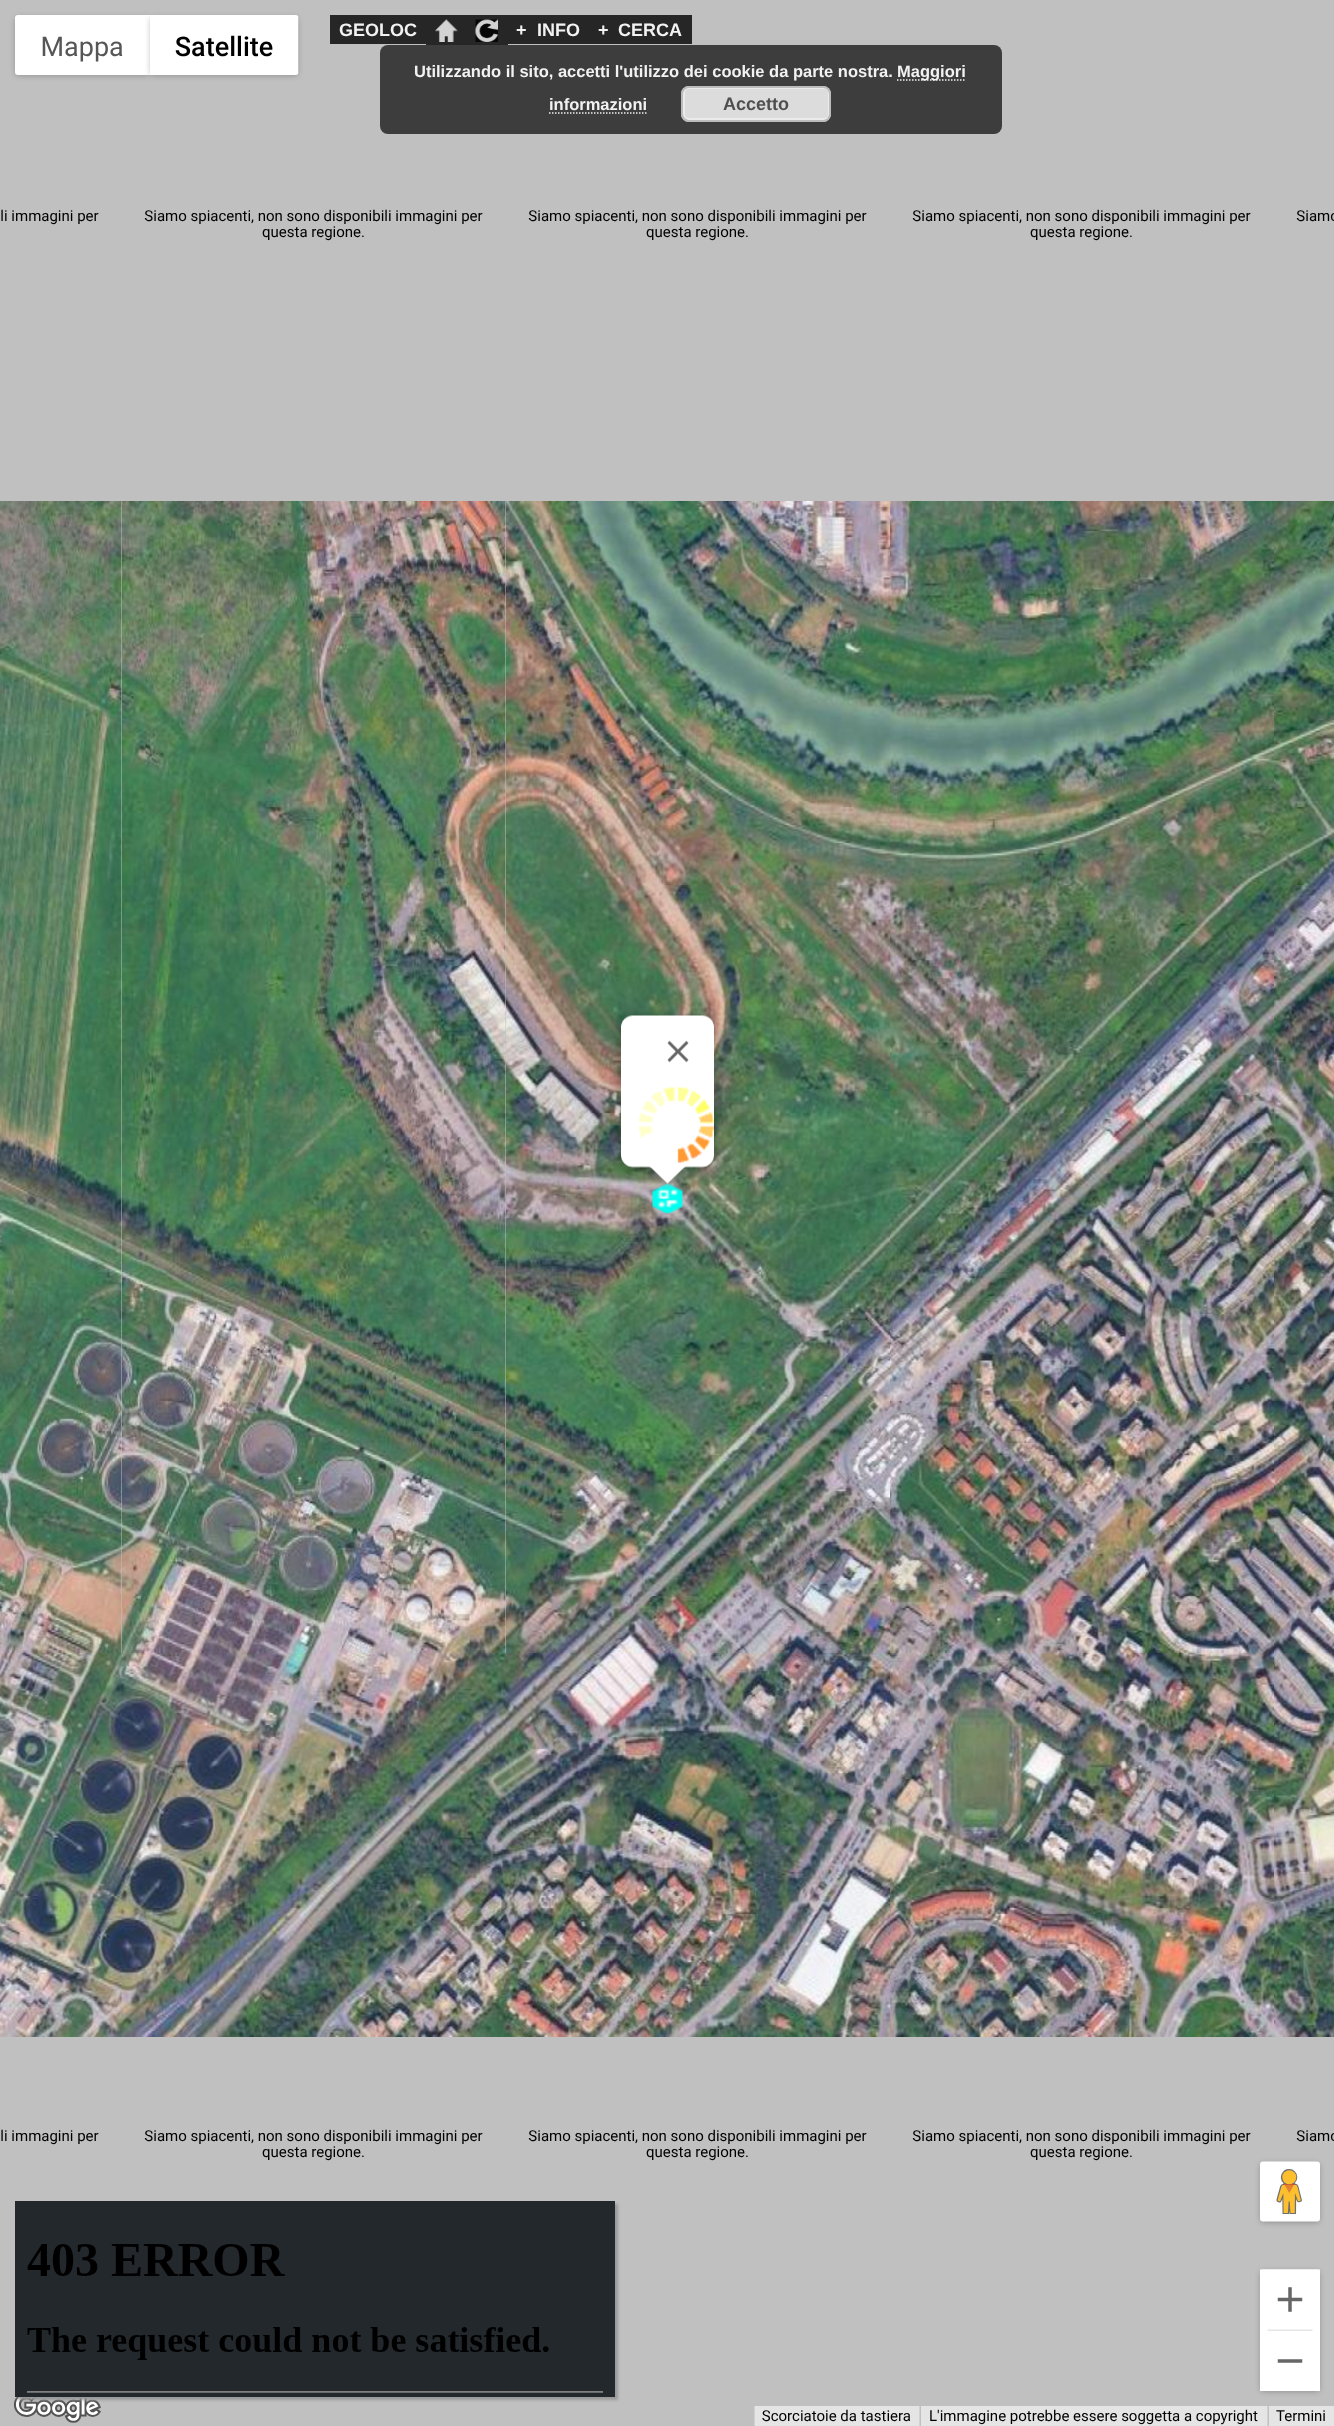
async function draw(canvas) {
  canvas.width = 1334
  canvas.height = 2426
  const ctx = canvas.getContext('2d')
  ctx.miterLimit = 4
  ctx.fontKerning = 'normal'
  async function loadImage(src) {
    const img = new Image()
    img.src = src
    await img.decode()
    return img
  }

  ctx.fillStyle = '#fff'
  ctx.fillRect(0, 0, 1334, 2426)
  ctx.drawImage(await loadImage('image0.png'), 0, 0, 1334, 2426)
  ctx.fillStyle = '#262626'
  ctx.fillRect(426, 15, 82, 30)
  ctx.drawImage(await loadImage('image1.png'), 475, 19, 23, 23)
  ctx.fillRect(330, 15, 96, 29)
  ctx.font = 'bold 18px Liberation Sans'
  ctx.fillStyle = '#f2f2f2'
  ctx.fillText('GEOLOC', 339, 36)
  ctx.drawImage(await loadImage('image2.png'), 435, 19, 23, 23)
  ctx.fillStyle = '#262626'
  ctx.fillRect(508, 15, 184, 29)
  ctx.fillStyle = '#f2f2f2'
  ctx.fillText('+', 516, 36)
  ctx.fillText('INFO', 537, 36)
  ctx.fillText('+', 598, 36)
  ctx.fillText('CERCA', 618, 36)
  ctx.fillStyle = '#3d3d3d'
  ctx.beginPath()
  ctx.roundRect(380, 45, 622, 89, 8)
  ctx.fill()
  ctx.font = 'bold 16.5px Liberation Sans'
  ctx.fillStyle = '#f2f2f2'
  ctx.fillText('Utilizzando il sito, accetti l\'utilizzo dei cookie da parte nostra.', 414, 77)
  ctx.beginPath()
  ctx.moveTo(897, 80)
  ctx.lineTo(966, 80)
  ctx.strokeStyle = '#f2f2f2'
  ctx.lineWidth = 1.5
  ctx.setLineDash([1.5, 1.5])
  ctx.stroke()
  ctx.fillText('Maggiori', 897, 77)
  ctx.fillText('informazioni', 549, 110)
  ctx.beginPath()
  ctx.moveTo(549, 113)
  ctx.lineTo(646.5, 113)
  ctx.stroke()
  ctx.fillStyle = '#dcdcdc'
  ctx.beginPath()
  ctx.roundRect(681, 86, 150, 36, 8)
  ctx.fill()
  ctx.beginPath()
  ctx.roundRect(684, 88, 145, 31, 5)
  ctx.strokeStyle = '#ebebeb'
  ctx.lineWidth = 2
  ctx.setLineDash([])
  ctx.stroke()
  ctx.beginPath()
  ctx.roundRect(682, 87, 148, 34, 7)
  ctx.strokeStyle = '#bcbcbc'
  ctx.stroke()
  ctx.font = 'bold 18px Liberation Sans'
  ctx.fillStyle = '#4f4f4f'
  ctx.fillText('Accetto', 723, 110)
  ctx.fillStyle = '#999'
  ctx.filter = 'blur(1.5px)'
  ctx.beginPath()
  ctx.rect(18, 2204, 600, 196)
  ctx.fill()
  ctx.filter = 'none'
  ctx.fillStyle = '#23282d'
  ctx.fillRect(15, 2201, 600, 196)
  ctx.drawImage(await loadImage('image3.png'), 27, 2244, 576, 149)
}

draw(document.querySelector('canvas'))
